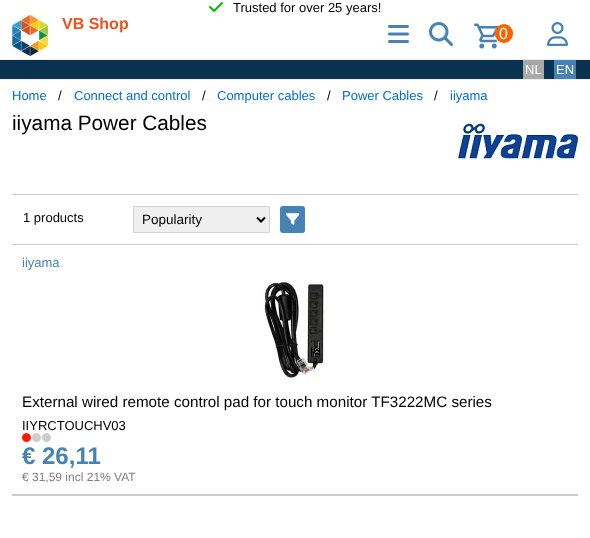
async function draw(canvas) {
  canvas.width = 590
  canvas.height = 538
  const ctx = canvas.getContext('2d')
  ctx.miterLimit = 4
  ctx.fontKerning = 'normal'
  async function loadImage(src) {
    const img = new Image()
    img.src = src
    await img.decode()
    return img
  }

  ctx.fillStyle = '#fff'
  ctx.fillRect(0, 0, 590, 538)
  ctx.fillStyle = '#eeeded'
  ctx.fillRect(0, 79, 590, 1)
  ctx.drawImage(await loadImage('image0.png'), 209, 2, 14, 10)
  ctx.font = '13px Liberation Sans'
  ctx.fillStyle = '#000'
  ctx.fillText('Trusted for over 25 years!', 233, 12)
  ctx.fillStyle = '#eeeded'
  ctx.fillRect(0, 59, 590, 1)
  ctx.drawImage(await loadImage('image1.png'), 12, 15, 36, 41)
  ctx.font = 'bold 16px Liberation Sans'
  ctx.fillStyle = '#e95420'
  ctx.fillText('VB Shop', 62, 29)
  ctx.drawImage(await loadImage('image2.png'), 388, 25, 21, 18)
  ctx.drawImage(await loadImage('image3.png'), 429, 22, 24, 24)
  ctx.drawImage(await loadImage('image4.png'), 474, 23, 25, 26)
  ctx.fillStyle = '#f86200'
  ctx.beginPath()
  ctx.roundRect(495, 24, 18, 19, 9)
  ctx.fill()
  ctx.font = '16px Liberation Sans'
  ctx.fillStyle = '#fff'
  ctx.fillText('0', 499, 39)
  ctx.drawImage(await loadImage('image5.png'), 547, 22, 21, 24)
  ctx.fillStyle = '#083250'
  ctx.fillRect(0, 60, 590, 19)
  ctx.fillStyle = '#a9a9a9'
  ctx.fillRect(523, 60, 21, 19)
  ctx.font = '13px Liberation Sans'
  ctx.fillStyle = '#fff'
  ctx.fillText('NL', 525, 74)
  ctx.fillStyle = '#4682b4'
  ctx.fillRect(554, 60, 22, 19)
  ctx.fillStyle = '#fff'
  ctx.fillText('EN', 556, 74)
  ctx.fillStyle = '#006dd3'
  ctx.fillText('Home', 12, 100)
  ctx.fillStyle = '#000'
  ctx.fillText('/', 58, 100)
  ctx.fillStyle = '#006dd3'
  ctx.fillText('Connect and control', 74, 100)
  ctx.fillStyle = '#000'
  ctx.fillText('/', 202, 100)
  ctx.fillStyle = '#006dd3'
  ctx.fillText('Computer cables', 217, 100)
  ctx.fillStyle = '#000'
  ctx.fillText('/', 327, 100)
  ctx.fillStyle = '#006dd3'
  ctx.fillText('Power Cables', 342, 100)
  ctx.fillStyle = '#000'
  ctx.fillText('/', 434, 100)
  ctx.fillStyle = '#006dd3'
  ctx.fillText('iiyama', 450, 100)
  ctx.font = '20.75px Liberation Sans'
  ctx.fillStyle = '#000'
  ctx.fillText('iiyama Power Cables', 12, 130)
  ctx.drawImage(await loadImage('image6.png'), 458, 122, 120, 38)
  ctx.fillStyle = '#ccc'
  ctx.fillRect(12, 194, 566, 1)
  ctx.fillRect(12, 244, 566, 1)
  ctx.font = '13px Liberation Sans'
  ctx.fillStyle = '#000'
  ctx.fillText('1 products', 23, 222)
  ctx.fillStyle = '#efefef'
  ctx.beginPath()
  ctx.rect(133.5, 206.5, 136, 26)
  ctx.fill()
  ctx.strokeStyle = '#d3d3d3'
  ctx.stroke()
  ctx.beginPath()
  ctx.moveTo(257, 217.5)
  ctx.lineTo(261, 221.5)
  ctx.lineTo(265, 217.5)
  ctx.strokeStyle = '#000'
  ctx.lineWidth = 2
  ctx.stroke()
  ctx.font = '13.5px Liberation Sans'
  ctx.fillStyle = '#000'
  ctx.fillText('Popularity', 142, 224)
  ctx.fillStyle = '#4682b4'
  ctx.beginPath()
  ctx.roundRect(280, 206, 25, 27, 3)
  ctx.fill()
  ctx.drawImage(await loadImage('image7.png'), 286, 213, 14, 12)
  ctx.font = '13px Liberation Sans'
  ctx.fillText('iiyama', 22, 267)
  ctx.drawImage(await loadImage('image8.png'), 263, 282, 64, 98)
  ctx.font = '15.2px Liberation Sans'
  ctx.fillStyle = '#000'
  ctx.fillText('External wired remote control pad for touch monitor TF3222MC series', 22, 407)
  ctx.font = '13px Liberation Sans'
  ctx.fillText('IIYRCTOUCHV03', 22, 430)
  ctx.drawImage(await loadImage('image9.png'), 22, 433, 29, 9)
  ctx.font = 'bold 24px Liberation Sans'
  ctx.fillStyle = '#4682b4'
  ctx.fillText('€ 26,11', 22, 464)
  ctx.font = '12px Liberation Sans'
  ctx.fillStyle = '#808080'
  ctx.fillText('€ 31,59 incl 21% VAT', 22, 481)
  ctx.fillStyle = '#ccc'
  ctx.fillRect(12, 494, 566, 2)
}

draw(document.querySelector('canvas'))
